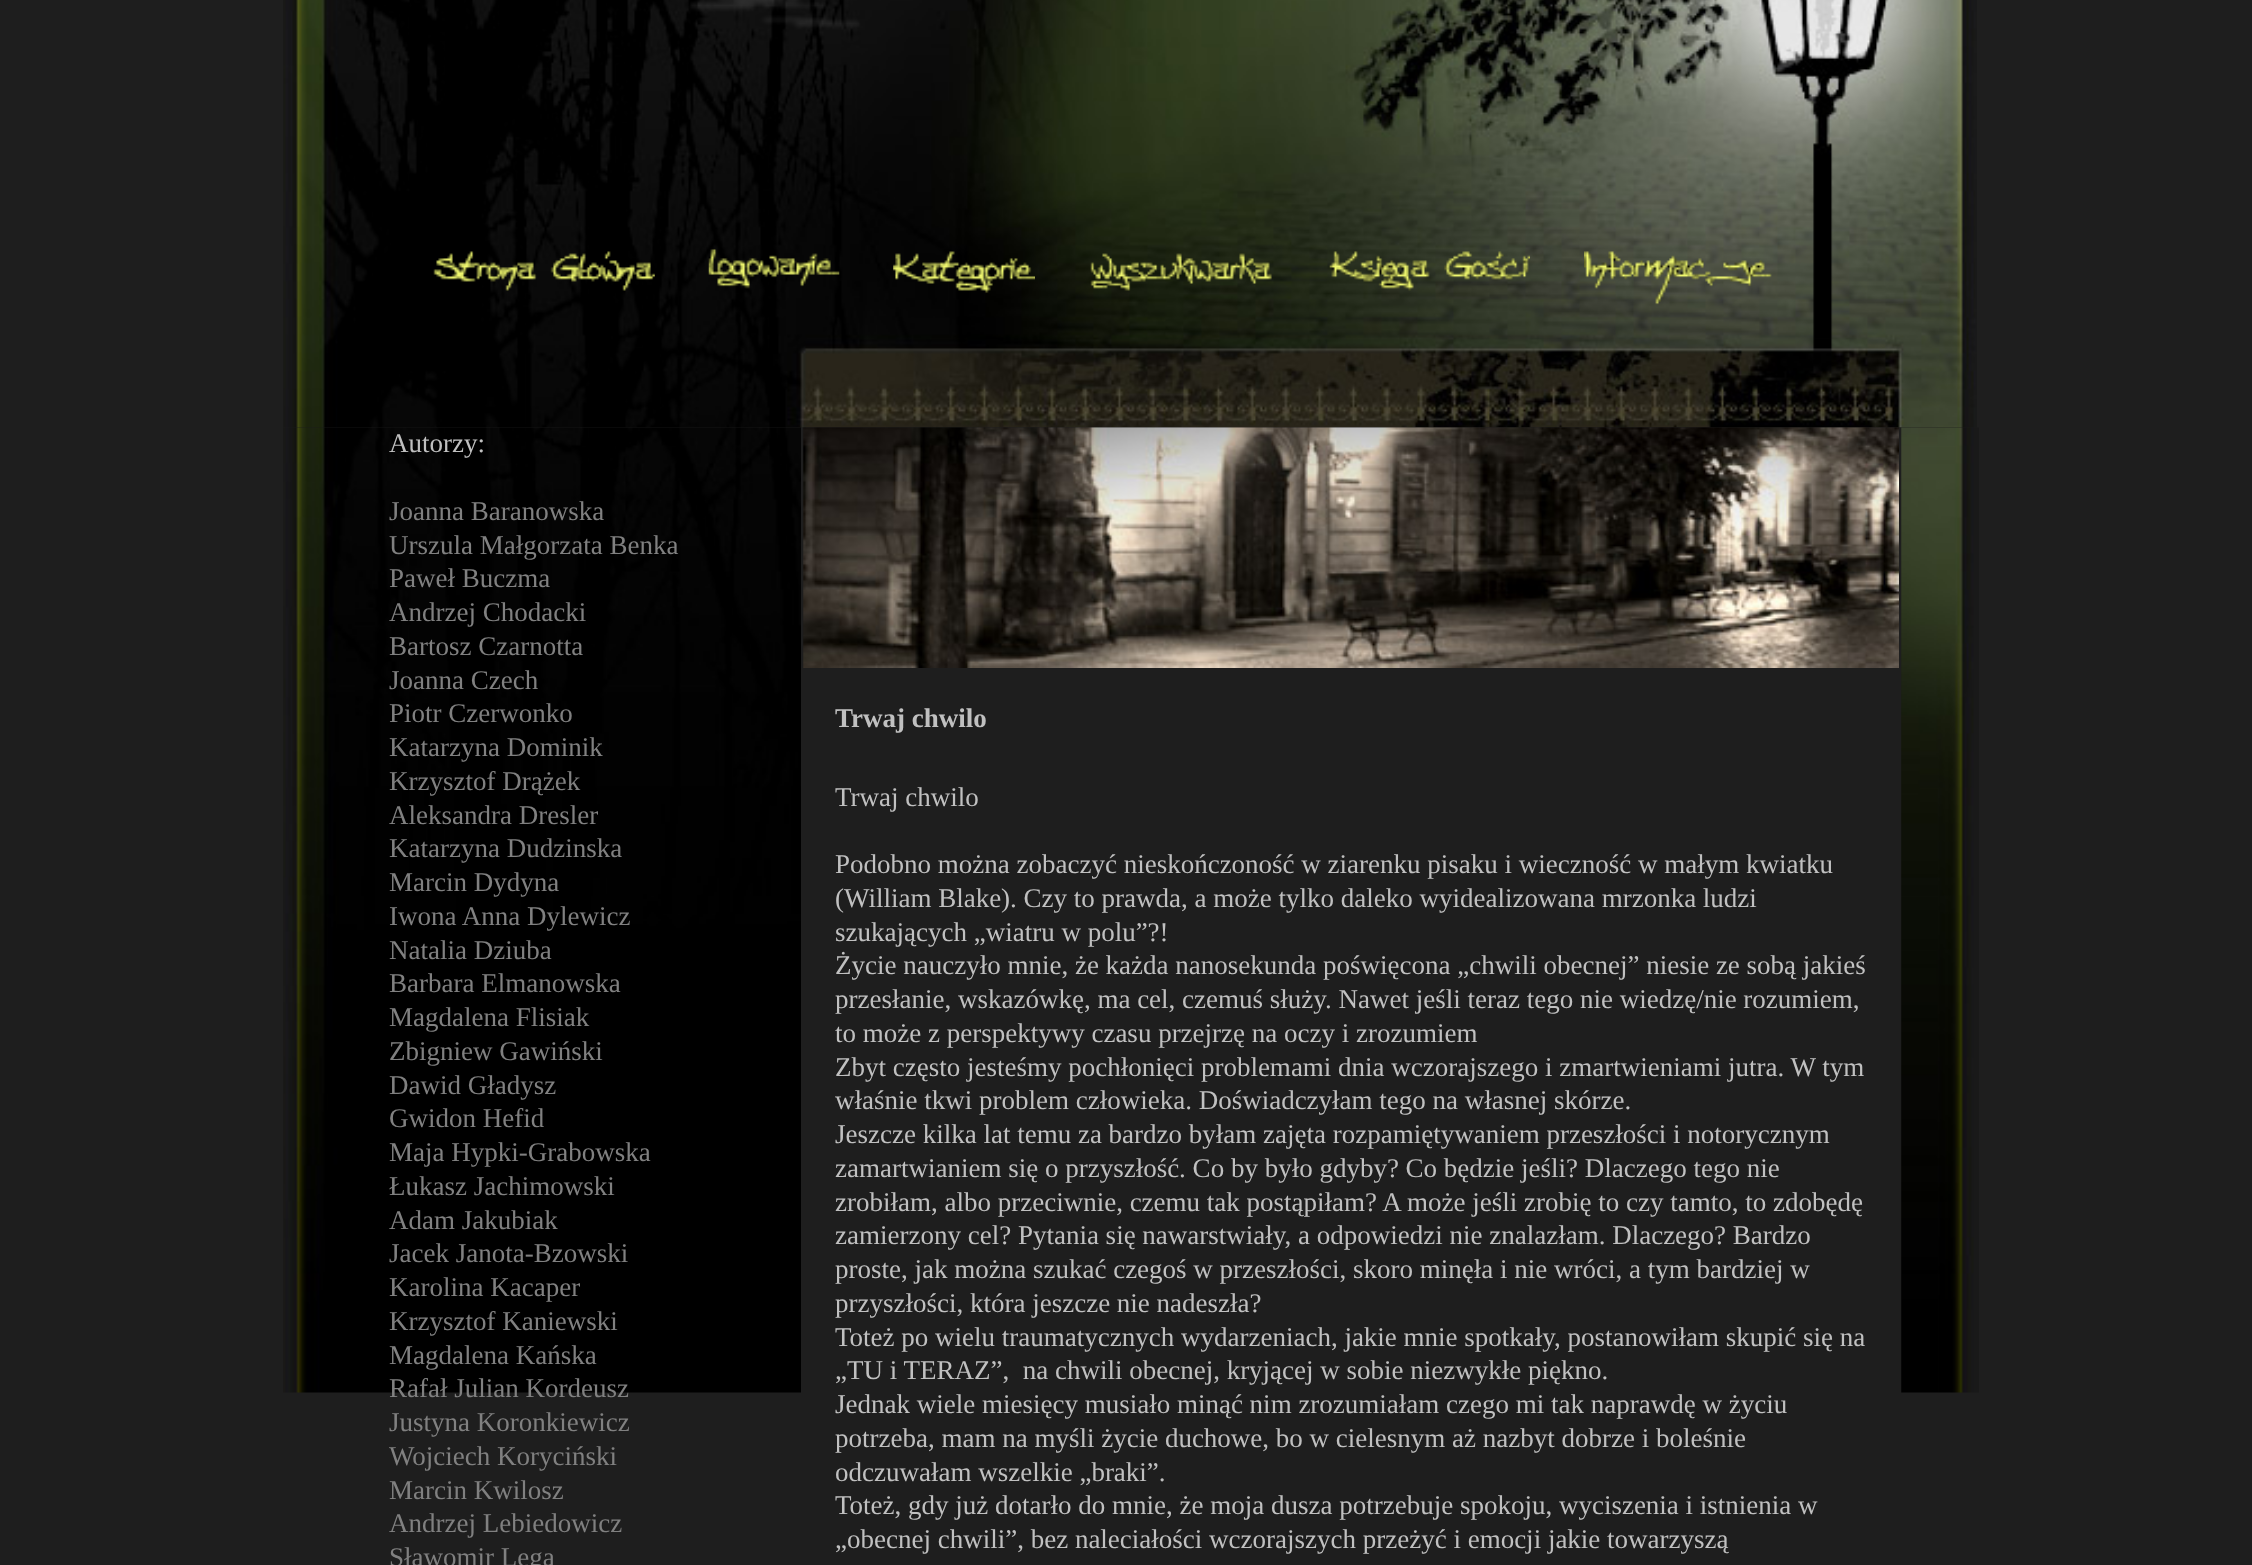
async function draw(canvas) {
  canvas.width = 2252
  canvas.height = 1565
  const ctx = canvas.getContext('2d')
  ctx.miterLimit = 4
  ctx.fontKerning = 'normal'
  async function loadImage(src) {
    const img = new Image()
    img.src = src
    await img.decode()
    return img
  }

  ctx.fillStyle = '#1e1e1e'
  ctx.fillRect(0, 0, 2252, 1565)
  ctx.drawImage(await loadImage('image0.png'), 283, 0, 1694, 428)
  ctx.drawImage(await loadImage('image1.png'), 433, 251, 222, 40)
  ctx.drawImage(await loadImage('image2.png'), 708, 249, 132, 40)
  ctx.drawImage(await loadImage('image3.png'), 893, 251, 142, 42)
  ctx.drawImage(await loadImage('image4.png'), 1090, 253, 182, 38)
  ctx.drawImage(await loadImage('image5.png'), 1329, 251, 201, 40)
  ctx.drawImage(await loadImage('image6.png'), 1584, 251, 188, 54)
  ctx.drawImage(await loadImage('image7.png'), 283, 427, 518, 966)
  ctx.font = '27px Liberation Serif'
  ctx.fillStyle = '#c0c0c0'
  ctx.fillText('Autorzy:', 389, 452)
  ctx.fillStyle = '#808080'
  ctx.fillText('Joanna Baranowska', 389, 520)
  ctx.fillText('Urszula Małgorzata Benka', 389, 554)
  ctx.fillText('Paweł Buczma', 389, 587)
  ctx.fillText('Andrzej Chodacki', 389, 621)
  ctx.fillText('Bartosz Czarnotta', 389, 655)
  ctx.fillText('Joanna Czech', 389, 689)
  ctx.fillText('Piotr Czerwonko', 389, 722)
  ctx.fillText('Katarzyna Dominik', 389, 756)
  ctx.fillText('Krzysztof Drążek', 389, 790)
  ctx.fillText('Aleksandra Dresler', 389, 824)
  ctx.fillText('Katarzyna Dudzinska', 389, 857)
  ctx.fillText('Marcin Dydyna', 389, 891)
  ctx.fillText('Iwona Anna Dylewicz', 389, 925)
  ctx.fillText('Natalia Dziuba', 389, 959)
  ctx.fillText('Barbara Elmanowska', 389, 992)
  ctx.fillText('Magdalena Flisiak', 389, 1026)
  ctx.fillText('Zbigniew Gawiński', 389, 1060)
  ctx.fillText('Dawid Gładysz', 389, 1094)
  ctx.fillText('Gwidon Hefid', 389, 1127)
  ctx.fillText('Maja Hypki-Grabowska', 389, 1161)
  ctx.fillText('Łukasz Jachimowski', 389, 1195)
  ctx.fillText('Adam Jakubiak', 389, 1229)
  ctx.fillText('Jacek Janota-Bzowski', 389, 1262)
  ctx.fillText('Karolina Kacaper', 389, 1296)
  ctx.fillText('Krzysztof Kaniewski', 389, 1330)
  ctx.fillText('Magdalena Kańska', 389, 1364)
  ctx.fillText('Rafał Julian Kordeusz', 389, 1397)
  ctx.fillText('Justyna Koronkiewicz', 389, 1431)
  ctx.fillText('Wojciech Koryciński', 389, 1465)
  ctx.fillText('Marcin Kwilosz', 389, 1499)
  ctx.fillText('Andrzej Lebiedowicz', 389, 1532)
  ctx.fillText('Sławomir Lęga', 389, 1566)
  ctx.drawImage(await loadImage('image8.png'), 803, 427, 1096, 241)
  ctx.drawImage(await loadImage('image9.png'), 1901, 427, 78, 966)
  ctx.font = 'bold 27px Liberation Serif'
  ctx.fillStyle = '#c0c0c0'
  ctx.fillText('Trwaj chwilo', 835, 727)
  ctx.font = '27px Liberation Serif'
  ctx.fillText('Trwaj chwilo', 835, 806)
  ctx.fillText('Podobno można zobaczyć nieskończoność w ziarenku pisaku i wieczność w małym kwiatku', 835, 873)
  ctx.fillText('(William Blake). Czy to prawda, a może tylko daleko wyidealizowana mrzonka ludzi', 835, 907)
  ctx.fillText('szukających „wiatru w polu”?!', 835, 941)
  ctx.fillText('Życie nauczyło mnie, że każda nanosekunda poświęcona „chwili obecnej” niesie ze sobą jakieś', 835, 974)
  ctx.fillText('przesłanie, wskazówkę, ma cel, czemuś służy. Nawet jeśli teraz tego nie wiedzę/nie rozumiem,', 835, 1008)
  ctx.fillText('to może z perspektywy czasu przejrzę na oczy i zrozumiem', 835, 1042)
  ctx.fillText('Zbyt często jesteśmy pochłonięci problemami dnia wczorajszego i zmartwieniami jutra. W tym', 835, 1076)
  ctx.fillText('właśnie tkwi problem człowieka. Doświadczyłam tego na własnej skórze.', 835, 1109)
  ctx.fillText('Jeszcze kilka lat temu za bardzo byłam zajęta rozpamiętywaniem przeszłości i notorycznym', 835, 1143)
  ctx.fillText('zamartwianiem się o przyszłość. Co by było gdyby? Co będzie jeśli? Dlaczego tego nie', 835, 1177)
  ctx.fillText('zrobiłam, albo przeciwnie, czemu tak postąpiłam? A może jeśli zrobię to czy tamto, to zdobędę', 835, 1211)
  ctx.fillText('zamierzony cel? Pytania się nawarstwiały, a odpowiedzi nie znalazłam. Dlaczego? Bardzo', 835, 1244)
  ctx.fillText('proste, jak można szukać czegoś w przeszłości, skoro minęła i nie wróci, a tym bardziej w', 835, 1278)
  ctx.fillText('przyszłości, która jeszcze nie nadeszła?', 835, 1312)
  ctx.fillText('Toteż po wielu traumatycznych wydarzeniach, jakie mnie spotkały, postanowiłam skupić się na', 835, 1346)
  ctx.fillText('„TU i TERAZ”,  na chwili obecnej, kryjącej w sobie niezwykłe piękno.', 835, 1379)
  ctx.fillText('Jednak wiele miesięcy musiało minąć nim zrozumiałam czego mi tak naprawdę w życiu', 835, 1413)
  ctx.fillText('potrzeba, mam na myśli życie duchowe, bo w cielesnym aż nazbyt dobrze i boleśnie', 835, 1447)
  ctx.fillText('odczuwałam wszelkie „braki”.', 835, 1481)
  ctx.fillText('Toteż, gdy już dotarło do mnie, że moja dusza potrzebuje spokoju, wyciszenia i istnienia w', 835, 1514)
  ctx.fillText('„obecnej chwili”, bez naleciałości wczorajszych przeżyć i emocji jakie towarzyszą', 835, 1548)
}

draw(document.querySelector('canvas'))
